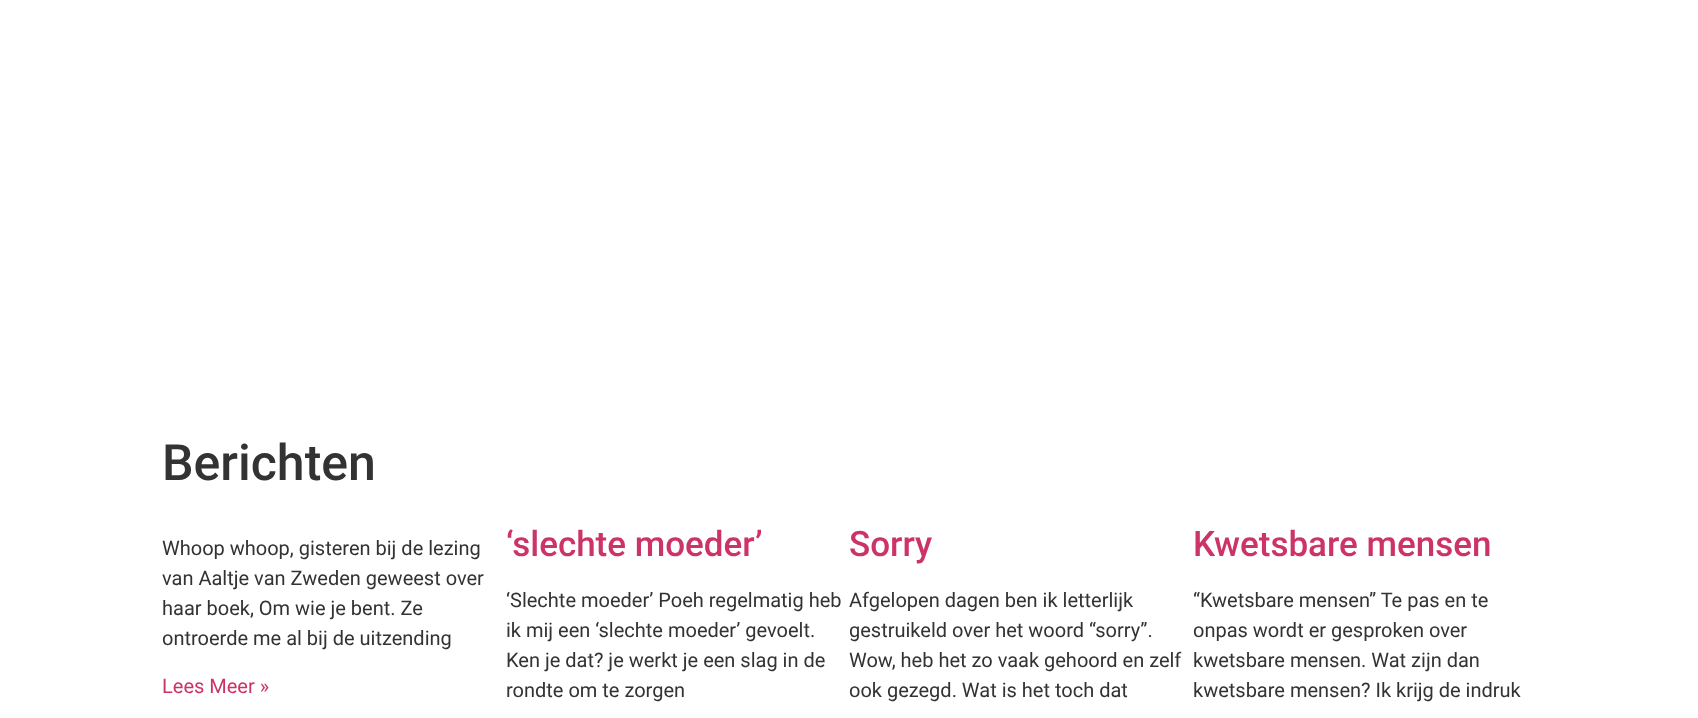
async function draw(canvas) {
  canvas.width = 1698
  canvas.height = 718
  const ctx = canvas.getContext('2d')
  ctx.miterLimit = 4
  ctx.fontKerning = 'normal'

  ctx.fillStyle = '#fff'
  ctx.fillRect(0, 0, 1698, 718)
  ctx.font = '500 50px Roboto'
  ctx.fillStyle = '#333'
  ctx.fillText('Berichten', 162, 480)
  ctx.font = '20px Roboto'
  ctx.fillText('Whoop whoop, gisteren bij de lezing', 162, 555)
  ctx.fillText('van Aaltje van Zweden geweest over', 162, 585)
  ctx.fillText('haar boek, Om wie je bent. Ze', 162, 615)
  ctx.fillText('ontroerde me al bij de uitzending', 162, 645)
  ctx.fillStyle = '#c36'
  ctx.fillText('Lees Meer »', 162, 693)
  ctx.font = '500 35px Roboto'
  ctx.fillText('‘slechte moeder’', 506, 556)
  ctx.font = '20px Roboto'
  ctx.fillStyle = '#333'
  ctx.fillText('‘Slechte moeder’ Poeh regelmatig heb', 506, 607)
  ctx.fillText('ik mij een ‘slechte moeder’ gevoelt.', 506, 637)
  ctx.fillText('Ken je dat? je werkt je een slag in de', 506, 667)
  ctx.fillText('rondte om te zorgen', 506, 697)
  ctx.font = '500 35px Roboto'
  ctx.fillStyle = '#c36'
  ctx.fillText('Sorry', 849, 556)
  ctx.font = '20px Roboto'
  ctx.fillStyle = '#333'
  ctx.fillText('Afgelopen dagen ben ik letterlijk', 849, 607)
  ctx.fillText('gestruikeld over het woord “sorry”.', 849, 637)
  ctx.fillText('Wow, heb het zo vaak gehoord en zelf', 849, 667)
  ctx.fillText('ook gezegd. Wat is het toch dat', 849, 697)
  ctx.font = '500 35px Roboto'
  ctx.fillStyle = '#c36'
  ctx.fillText('Kwetsbare mensen', 1193, 556)
  ctx.font = '20px Roboto'
  ctx.fillStyle = '#333'
  ctx.fillText('“Kwetsbare mensen” Te pas en te', 1193, 607)
  ctx.fillText('onpas wordt er gesproken over', 1193, 637)
  ctx.fillText('kwetsbare mensen. Wat zijn dan', 1193, 667)
  ctx.fillText('kwetsbare mensen? Ik krijg de indruk', 1193, 697)
}

draw(document.querySelector('canvas'))
